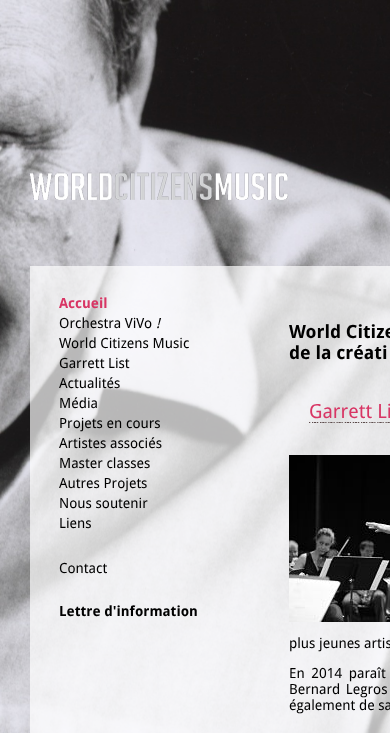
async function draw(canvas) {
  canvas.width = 390
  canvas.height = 733
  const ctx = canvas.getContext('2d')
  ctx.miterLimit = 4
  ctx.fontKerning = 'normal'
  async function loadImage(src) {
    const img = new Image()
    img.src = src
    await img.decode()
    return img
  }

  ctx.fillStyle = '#fff'
  ctx.fillRect(0, 0, 390, 733)
  ctx.drawImage(await loadImage('image0.png'), 0, 0, 390, 733)
  ctx.drawImage(await loadImage('image1.png'), 29, 172, 259, 28)
  ctx.fillStyle = '#ffffffb0'
  ctx.fillRect(30, 266, 360, 467)
  ctx.font = 'bold 14px Droid Sans'
  ctx.fillStyle = '#d83564'
  ctx.fillText('Accueil', 59, 308)
  ctx.font = '14px Droid Sans'
  ctx.fillStyle = '#000'
  ctx.fillText('Orchestra ViVo', 59, 328)
  ctx.font = 'italic 14px Droid Sans'
  ctx.fillText('!', 156, 328)
  ctx.font = '14px Droid Sans'
  ctx.fillText('World Citizens Music', 59, 348)
  ctx.fillText('Garrett List', 59, 368)
  ctx.fillText('Actualités', 59, 388)
  ctx.fillText('Média', 59, 408)
  ctx.fillText('Projets en cours', 59, 428)
  ctx.fillText('Artistes associés', 59, 448)
  ctx.fillText('Master classes', 59, 468)
  ctx.fillText('Autres Projets', 59, 488)
  ctx.fillText('Nous soutenir', 59, 508)
  ctx.fillText('Liens', 59, 528)
  ctx.fillText('Contact', 59, 573)
  ctx.font = 'bold 14px Droid Sans'
  ctx.fillText('Lettre d\'information', 59, 616)
  ctx.font = 'bold 18.25px Droid Sans'
  ctx.fillText('World Citize', 289, 338)
  ctx.fillText('de la créati', 289, 359)
  ctx.font = '19.5px Droid Sans'
  ctx.fillStyle = '#d83564'
  ctx.fillText('Garrett Li', 309, 418)
  ctx.drawImage(await loadImage('image2.png'), 309, 422, 81, 1)
  ctx.drawImage(await loadImage('image3.png'), 289, 455, 101, 167)
  ctx.font = '14px Droid Sans'
  ctx.fillStyle = '#000'
  ctx.fillText('plus jeunes artis', 289, 648)
  ctx.wordSpacing = '3px'
  ctx.fillText('En 2014 paraît', 289, 678)
  ctx.wordSpacing = '2px'
  ctx.fillText('Bernard Legros', 289, 694)
  ctx.wordSpacing = '0px'
  ctx.fillText('également de sa', 289, 710)
}

draw(document.querySelector('canvas'))
